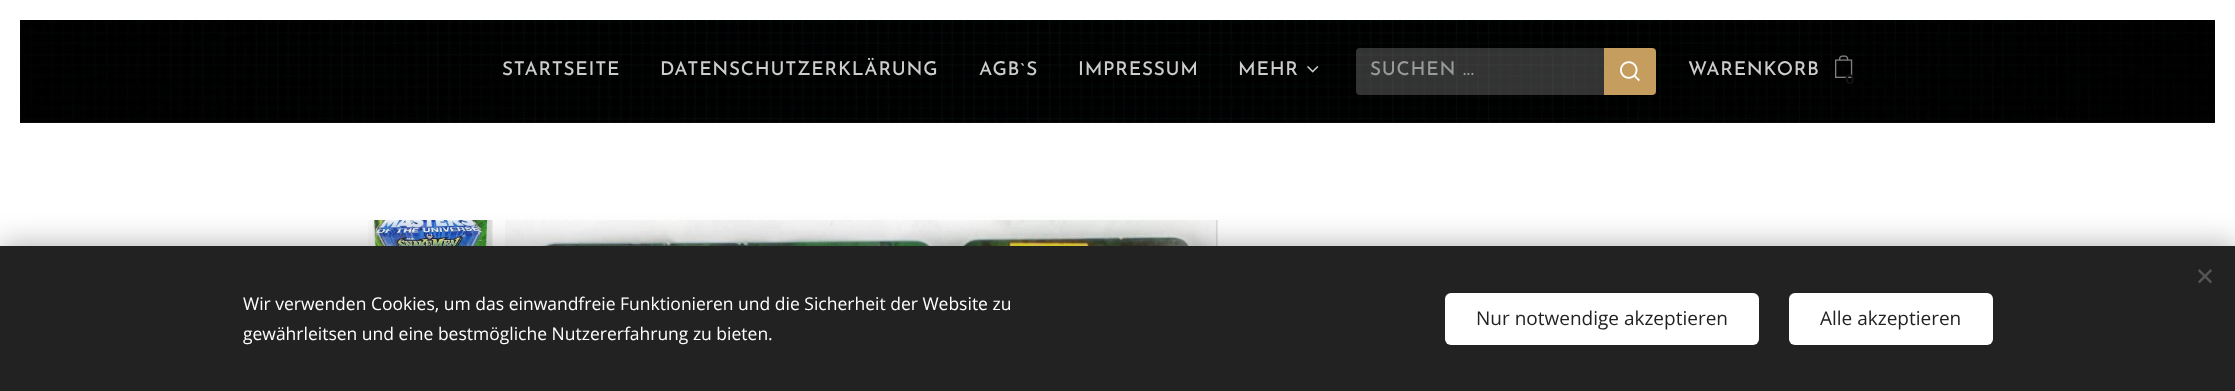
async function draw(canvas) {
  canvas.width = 2235
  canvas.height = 391
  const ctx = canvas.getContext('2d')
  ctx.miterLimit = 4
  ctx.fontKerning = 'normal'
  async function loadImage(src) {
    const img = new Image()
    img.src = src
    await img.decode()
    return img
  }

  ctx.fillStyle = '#fff'
  ctx.fillRect(0, 0, 2235, 391)
  ctx.fillStyle = '#101010'
  ctx.fillRect(20, 122, 2195, 1)
  ctx.drawImage(await loadImage('image0.png'), 20, 20, 2195, 103)
  ctx.letterSpacing = '0.75px'
  ctx.font = '500 19px Josefin Sans'
  ctx.fillStyle = '#ccc'
  ctx.fillText('STARTSEITE', 502, 75)
  ctx.fillText('DATENSCHUTZERKLÄRUNG', 660, 75)
  ctx.fillText('AGB`S', 979, 75)
  ctx.fillText('IMPRESSUM', 1078, 75)
  ctx.fillText('MEHR', 1238, 75)
  ctx.drawImage(await loadImage('image1.png'), 1307, 66, 12, 7)
  ctx.fillStyle = '#ffffff33'
  ctx.beginPath()
  ctx.roundRect(1356, 48, 248, 47, [4, 0, 0, 4])
  ctx.fill()
  ctx.fillStyle = '#999a9a'
  ctx.fillText('SUCHEN ...', 1370, 75)
  ctx.fillStyle = '#c59d5f'
  ctx.beginPath()
  ctx.roundRect(1604, 48, 52, 47, [0, 4, 4, 0])
  ctx.fill()
  ctx.drawImage(await loadImage('image2.png'), 1620, 61, 20, 21)
  ctx.fillStyle = '#ccc'
  ctx.fillText('WARENKORB', 1688, 75)
  ctx.drawImage(await loadImage('image3.png'), 1835, 55, 18, 23)
  ctx.letterSpacing = '0px'
  ctx.font = 'bold 14px Montserrat'
  ctx.fillStyle = '#121212'
  ctx.fillText('0', 1845, 84)
  ctx.drawImage(await loadImage('image4.png'), 367, 220, 126, 26)
  ctx.drawImage(await loadImage('image5.png'), 505, 220, 713, 26)
  ctx.fillStyle = '#00000054'
  ctx.filter = 'blur(15.5px)'
  ctx.beginPath()
  ctx.rect(0, 246, 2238, 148)
  ctx.fill()
  ctx.filter = 'none'
  ctx.fillStyle = '#222'
  ctx.fillRect(0, 246, 2235, 145)
  ctx.fillStyle = '#555'
  ctx.beginPath()
  ctx.moveTo(2198, 281.5)
  ctx.lineTo(2210.5, 269)
  ctx.lineTo(2212, 271)
  ctx.lineTo(2199.5, 283.5)
  ctx.closePath()
  ctx.fill()
  ctx.beginPath()
  ctx.moveTo(2199.5, 269)
  ctx.lineTo(2212, 281.5)
  ctx.lineTo(2210.5, 283.5)
  ctx.lineTo(2198, 271)
  ctx.closePath()
  ctx.fill()
  ctx.font = '17.5px Open Sans'
  ctx.fillStyle = '#fff'
  ctx.fillText('Wir verwenden Cookies, um das einwandfreie Funktionieren und die Sicherheit der Website zu', 243, 310)
  ctx.fillText('gewährleitsen und eine bestmögliche Nutzererfahrung zu bieten.', 243, 340)
  ctx.beginPath()
  ctx.roundRect(1445, 293, 314, 52, 6)
  ctx.fill()
  ctx.font = '19px Open Sans'
  ctx.fillStyle = '#222'
  ctx.fillText('Nur notwendige akzeptieren', 1476, 325)
  ctx.fillStyle = '#fff'
  ctx.beginPath()
  ctx.roundRect(1789, 293, 204, 52, 6)
  ctx.fill()
  ctx.fillStyle = '#222'
  ctx.fillText('Alle akzeptieren', 1820, 325)
}

draw(document.querySelector('canvas'))
